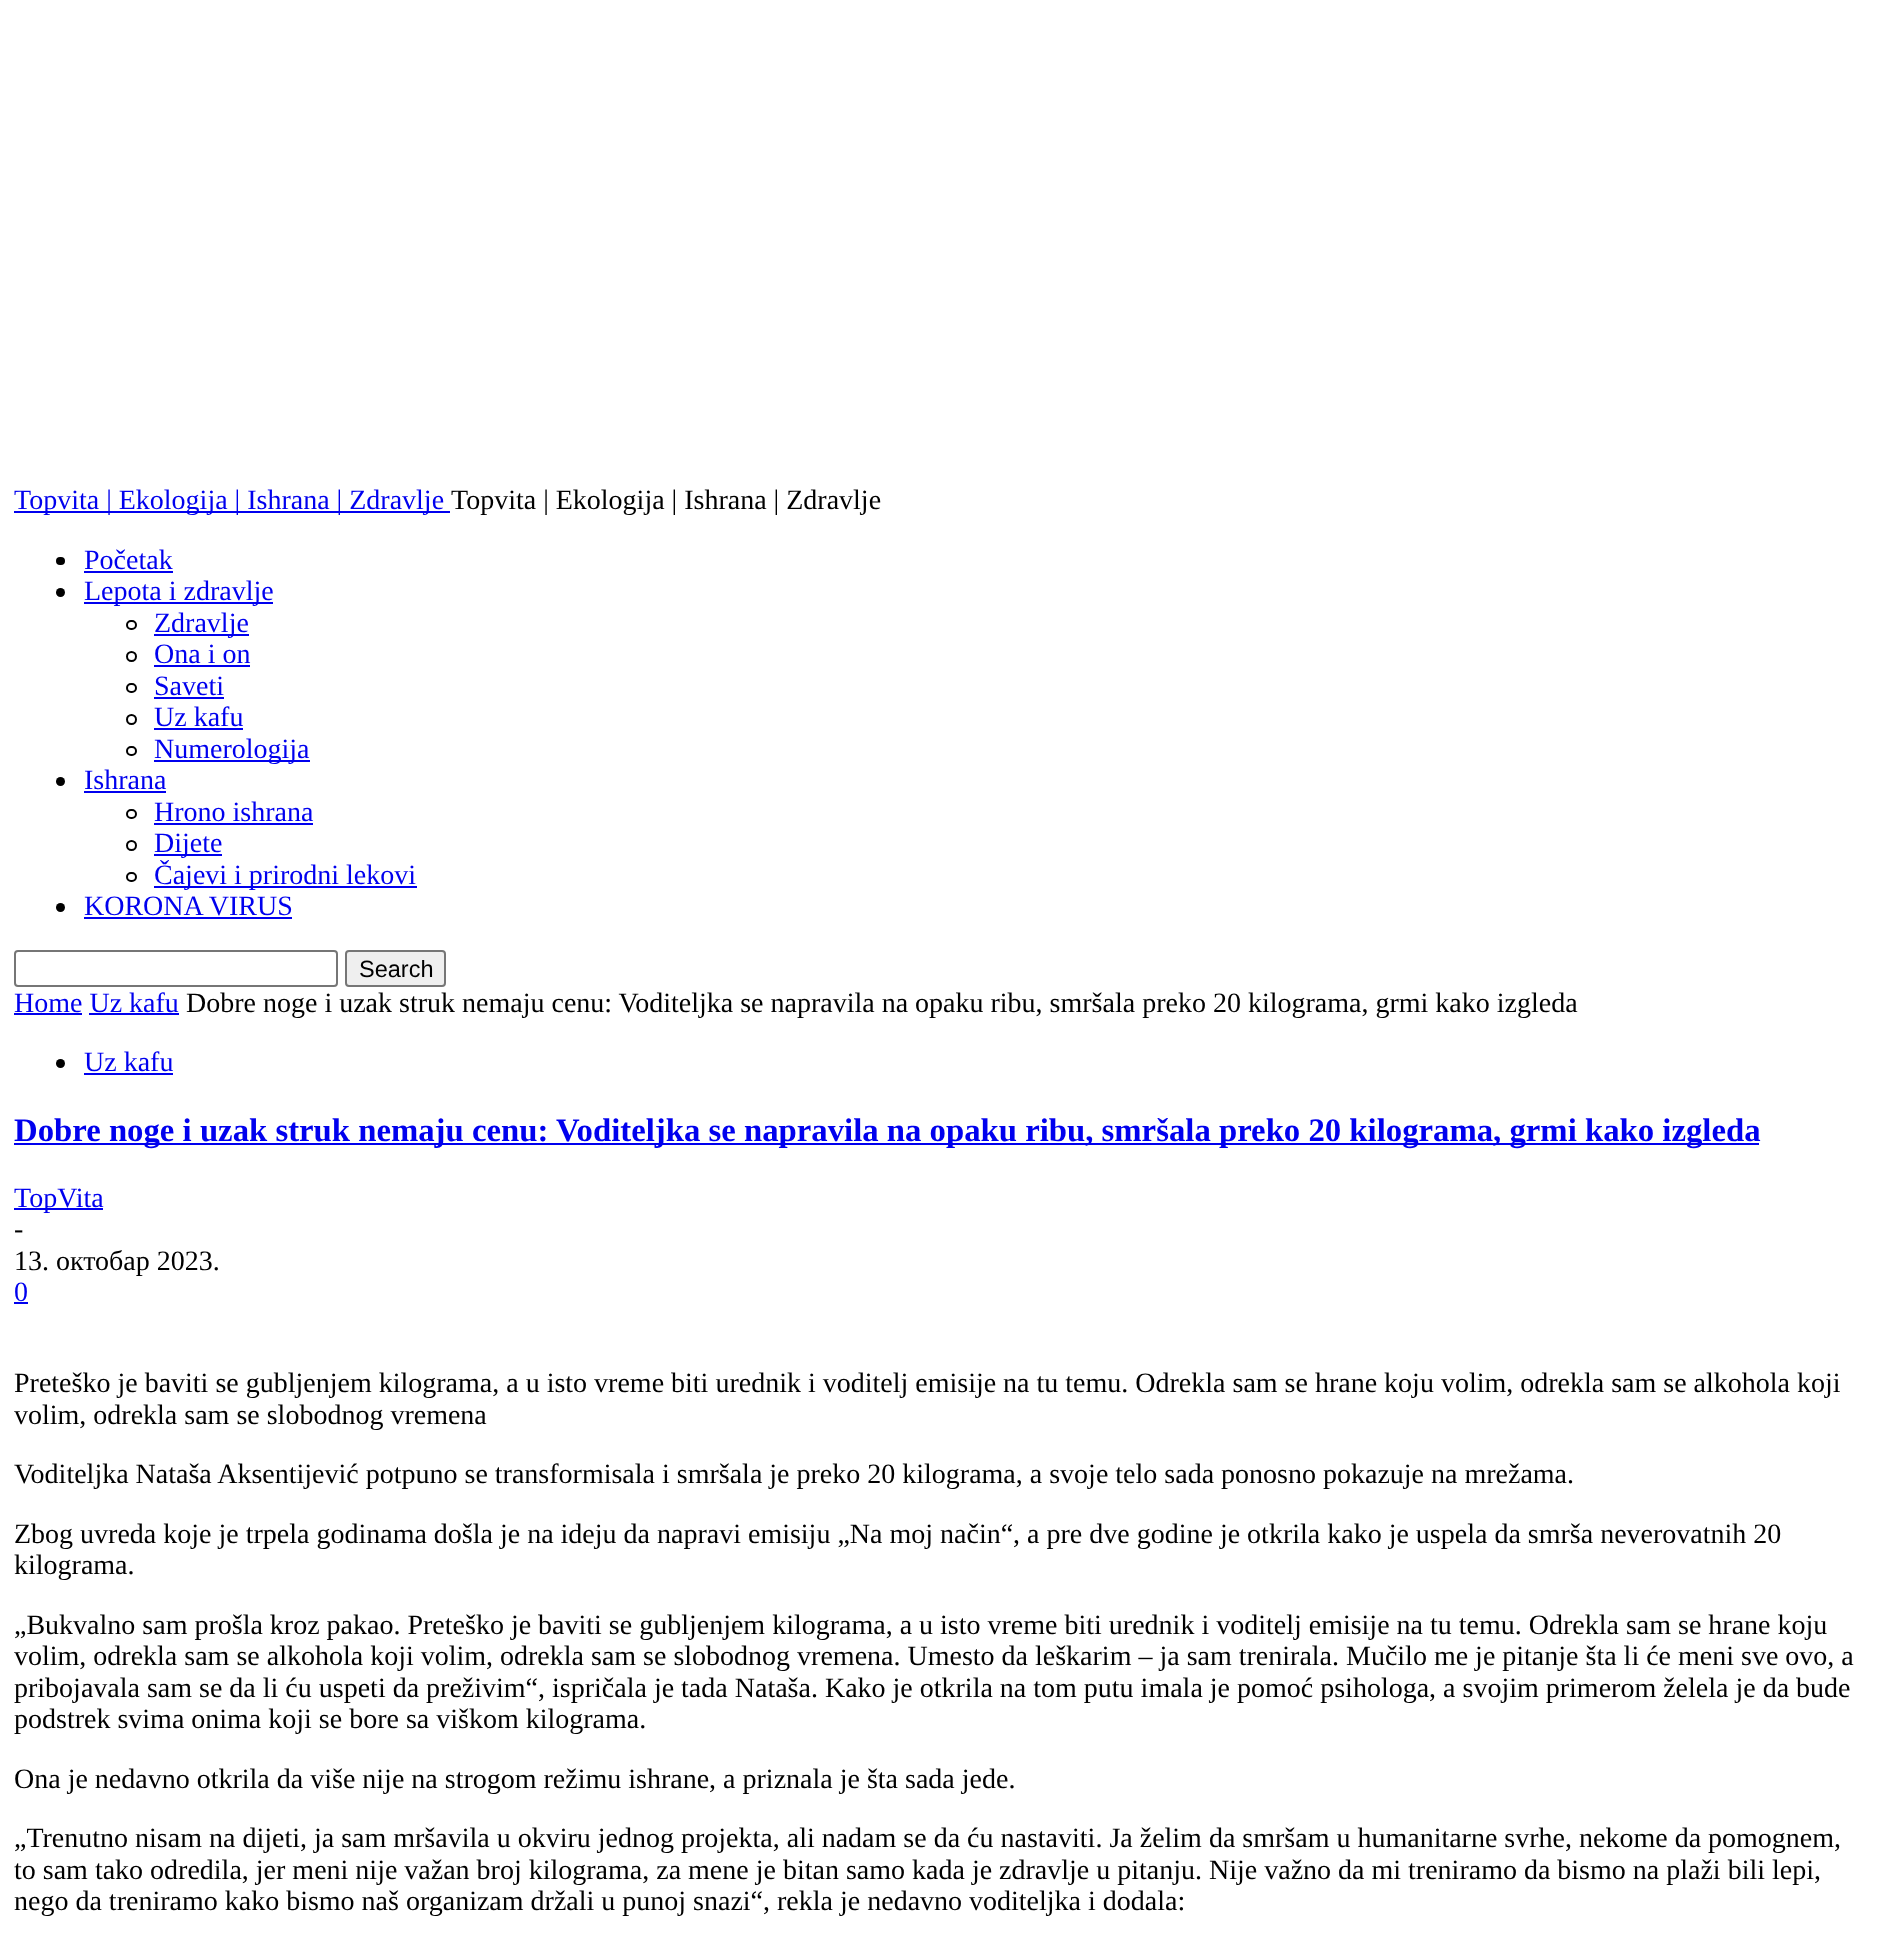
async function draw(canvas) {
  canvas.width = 1877
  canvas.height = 1936
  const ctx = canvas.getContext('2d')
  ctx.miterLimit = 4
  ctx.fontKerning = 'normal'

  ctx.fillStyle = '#fff'
  ctx.fillRect(0, 0, 1877, 1936)
  ctx.fillStyle = '#00e'
  ctx.fillRect(14, 511, 436, 2)
  ctx.font = '28px Liberation Serif'
  ctx.fillText('Topvita | Ekologija | Ishrana | Zdravlje', 14, 509)
  ctx.fillStyle = '#000'
  ctx.fillText('Topvita | Ekologija | Ishrana | Zdravlje', 451, 509)
  ctx.beginPath()
  ctx.roundRect(56, 557, 9, 8, 4)
  ctx.fill()
  ctx.fillStyle = '#00e'
  ctx.fillText('Početak', 84, 569)
  ctx.fillRect(84, 571, 89, 2)
  ctx.fillStyle = '#000'
  ctx.beginPath()
  ctx.arc(60.5, 592.5, 4.5, 0, 2 * Math.PI)
  ctx.fill()
  ctx.fillStyle = '#00e'
  ctx.fillRect(84, 602, 189, 2)
  ctx.fillText('Lepota i zdravlje', 84, 600)
  ctx.beginPath()
  ctx.roundRect(127, 621, 9, 8, 4)
  ctx.strokeStyle = '#000'
  ctx.lineWidth = 2
  ctx.stroke()
  ctx.fillRect(154, 634, 95, 2)
  ctx.fillText('Zdravlje', 154, 632)
  ctx.beginPath()
  ctx.arc(131.5, 656.5, 4.5, 0, 2 * Math.PI)
  ctx.stroke()
  ctx.fillText('Ona i on', 154, 663)
  ctx.fillRect(154, 665, 96, 2)
  ctx.beginPath()
  ctx.roundRect(127, 684, 9, 8, 4)
  ctx.stroke()
  ctx.fillText('Saveti', 154, 695)
  ctx.fillRect(154, 697, 70, 2)
  ctx.beginPath()
  ctx.arc(131.5, 719.5, 4.5, 0, 2 * Math.PI)
  ctx.stroke()
  ctx.fillText('Uz kafu', 154, 726)
  ctx.fillRect(154, 728, 89, 2)
  ctx.beginPath()
  ctx.roundRect(127, 747, 9, 8, 4)
  ctx.stroke()
  ctx.fillRect(154, 760, 156, 2)
  ctx.fillText('Numerologija', 154, 758)
  ctx.fillStyle = '#000'
  ctx.beginPath()
  ctx.arc(60.5, 781.5, 4.5, 0, 2 * Math.PI)
  ctx.fill()
  ctx.fillStyle = '#00e'
  ctx.fillText('Ishrana', 84, 789)
  ctx.fillRect(84, 791, 82, 2)
  ctx.beginPath()
  ctx.roundRect(127, 810, 9, 8, 4)
  ctx.stroke()
  ctx.fillText('Hrono ishrana', 154, 821)
  ctx.fillRect(154, 823, 159, 2)
  ctx.beginPath()
  ctx.arc(131.5, 845.5, 4.5, 0, 2 * Math.PI)
  ctx.stroke()
  ctx.fillRect(154, 854, 68, 2)
  ctx.fillText('Dijete', 154, 852)
  ctx.beginPath()
  ctx.roundRect(127, 873, 9, 8, 4)
  ctx.stroke()
  ctx.fillRect(154, 886, 263, 2)
  ctx.fillText('Čajevi i prirodni lekovi', 154, 884)
  ctx.fillStyle = '#000'
  ctx.beginPath()
  ctx.arc(60.5, 907.5, 4.5, 0, 2 * Math.PI)
  ctx.fill()
  ctx.fillStyle = '#00e'
  ctx.fillText('KORONA VIRUS', 84, 915)
  ctx.fillRect(84, 917, 208, 2)
  ctx.beginPath()
  ctx.roundRect(15, 951, 322, 35, 3)
  ctx.strokeStyle = '#767676'
  ctx.stroke()
  ctx.fillStyle = '#efefef'
  ctx.beginPath()
  ctx.roundRect(346, 951, 99, 35, 3)
  ctx.fill()
  ctx.stroke()
  ctx.font = '23.5px Liberation Sans'
  ctx.fillStyle = '#000'
  ctx.fillText('Search', 359, 977)
  ctx.font = '28px Liberation Serif'
  ctx.fillStyle = '#00e'
  ctx.fillText('Home Uz kafu', 14, 1012)
  ctx.fillRect(14, 1013, 68, 2)
  ctx.fillStyle = '#000'
  ctx.fillText('Dobre noge i uzak struk nemaju cenu: Voditeljka se napravila na opaku ribu, smršala preko 20 kilograma, grmi kako izgleda', 186, 1012)
  ctx.fillStyle = '#00e'
  ctx.fillRect(89, 1013, 90, 2)
  ctx.fillStyle = '#000'
  ctx.beginPath()
  ctx.arc(60.5, 1063.5, 4.5, 0, 2 * Math.PI)
  ctx.fill()
  ctx.fillStyle = '#00e'
  ctx.fillText('Uz kafu', 84, 1071)
  ctx.fillRect(84, 1073, 89, 2)
  ctx.fillRect(14, 1143, 1745, 2)
  ctx.font = 'bold 32.75px Liberation Serif'
  ctx.fillText('Dobre noge i uzak struk nemaju cenu: Voditeljka se napravila na opaku ribu, smršala preko 20 kilograma, grmi kako izgleda', 14, 1141)
  ctx.fillRect(14, 1208, 89, 2)
  ctx.font = '28px Liberation Serif'
  ctx.fillText('TopVita', 14, 1207)
  ctx.fillStyle = '#000'
  ctx.fillText('-', 14, 1238)
  ctx.fillText('13. октобар 2023.', 14, 1270)
  ctx.fillStyle = '#00e'
  ctx.fillText('0', 14, 1301)
  ctx.fillRect(14, 1302, 14, 2)
  ctx.fillStyle = '#000'
  ctx.fillText('Preteško je baviti se gubljenjem kilograma, a u isto vreme biti urednik i voditelj emisije na tu temu. Odrekla sam se hrane koju volim, odrekla sam se alkohola koji', 14, 1392)
  ctx.fillText('volim, odrekla sam se slobodnog vremena', 14, 1424)
  ctx.fillText('Voditeljka Nataša Aksentijević potpuno se transformisala i smršala je preko 20 kilograma, a svoje telo sada ponosno pokazuje na mrežama.', 14, 1483)
  ctx.fillText('Zbog uvreda koje je trpela godinama došla je na ideju da napravi emisiju „Na moj način“, a pre dve godine je otkrila kako je uspela da smrša neverovatnih 20', 14, 1543)
  ctx.fillText('kilograma.', 14, 1574)
  ctx.fillText('„Bukvalno sam prošla kroz pakao. Preteško je baviti se gubljenjem kilograma, a u isto vreme biti urednik i voditelj emisije na tu temu. Odrekla sam se hrane koju', 14, 1634)
  ctx.fillText('volim, odrekla sam se alkohola koji volim, odrekla sam se slobodnog vremena. Umesto da leškarim – ja sam trenirala. Mučilo me je pitanje šta li će meni sve ovo, a', 14, 1665)
  ctx.fillText('pribojavala sam se da li ću uspeti da preživim“, ispričala je tada Nataša. Kako je otkrila na tom putu imala je pomoć psihologa, a svojim primerom želela je da bude', 14, 1697)
  ctx.fillText('podstrek svima onima koji se bore sa viškom kilograma.', 14, 1728)
  ctx.fillText('Ona je nedavno otkrila da više nije na strogom režimu ishrane, a priznala je šta sada jede.', 14, 1788)
  ctx.fillText('„Trenutno nisam na dijeti, ja sam mršavila u okviru jednog projekta, ali nadam se da ću nastaviti. Ja želim da smršam u humanitarne svrhe, nekome da pomognem,', 14, 1847)
  ctx.fillText('to sam tako odredila, jer meni nije važan broj kilograma, za mene je bitan samo kada je zdravlje u pitanju. Nije važno da mi treniramo da bismo na plaži bili lepi,', 14, 1879)
  ctx.fillText('nego da treniramo kako bismo naš organizam držali u punoj snazi“, rekla je nedavno voditeljka i dodala:', 14, 1910)
}

draw(document.querySelector('canvas'))
